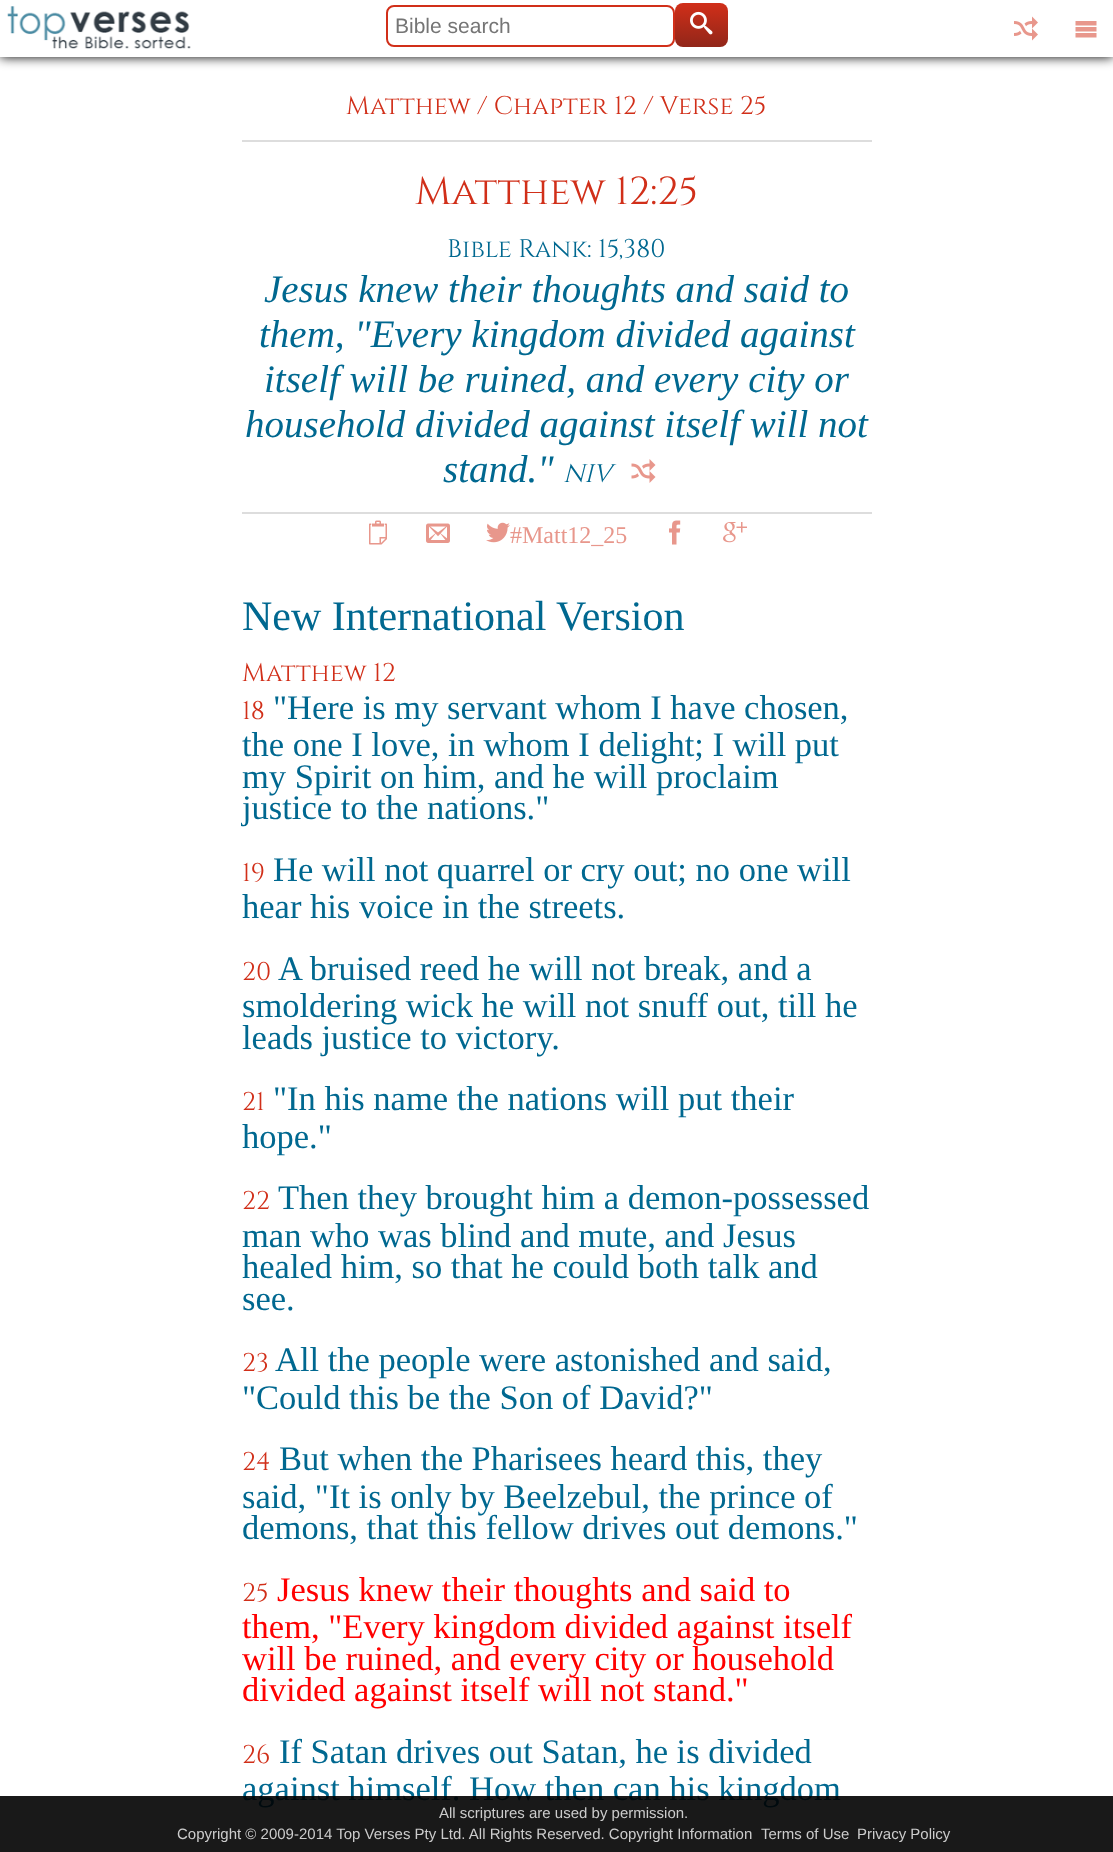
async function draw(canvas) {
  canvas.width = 1113
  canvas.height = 1852
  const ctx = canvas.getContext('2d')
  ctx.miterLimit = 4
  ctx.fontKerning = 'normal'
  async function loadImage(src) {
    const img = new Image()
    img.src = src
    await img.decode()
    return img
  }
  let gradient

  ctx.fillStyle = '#fff'
  ctx.fillRect(0, 0, 1113, 1852)
  ctx.fillStyle = '#000'
  ctx.filter = 'blur(6px)'
  ctx.beginPath()
  ctx.rect(0, 0, 1113, 57)
  ctx.fill()
  ctx.filter = 'none'
  ctx.fillStyle = '#fff'
  ctx.fillRect(0, 0, 1113, 57)
  ctx.drawImage(await loadImage('image0.png'), 7, 6, 184, 43)
  ctx.beginPath()
  ctx.roundRect(387, 6, 287, 40, 7)
  ctx.strokeStyle = '#d12f19'
  ctx.lineWidth = 2
  ctx.stroke()
  ctx.font = '21px Liberation Sans'
  ctx.fillStyle = '#757575'
  ctx.fillText('Bible search', 395, 33)
  gradient = ctx.createLinearGradient(701, 3, 701, 47)
  gradient.addColorStop(0, '#d12f19')
  gradient.addColorStop(1, '#912619')
  ctx.fillStyle = gradient
  ctx.beginPath()
  ctx.roundRect(675, 3, 53, 44, 8)
  ctx.fill()
  ctx.drawImage(await loadImage('image1.png'), 690, 11, 23, 24)
  ctx.drawImage(await loadImage('image2.png'), 1014, 16, 24, 25)
  ctx.drawImage(await loadImage('image3.png'), 1075, 21, 22, 17)
  ctx.font = '25.5px Cinzel'
  ctx.fillStyle = '#d12f19'
  ctx.fillText('Matthew / Chapter 12 / Verse 25', 346, 114)
  ctx.fillStyle = '#ddd'
  ctx.fillRect(242, 140, 630, 2)
  ctx.font = '39px Cinzel'
  ctx.fillStyle = '#d12f19'
  ctx.fillText('Matthew 12:25', 415, 204)
  ctx.font = '25.5px Cinzel'
  ctx.fillStyle = '#006890'
  ctx.fillText('Bible Rank: 15,380', 447, 257)
  ctx.font = 'italic 39px Liberation Serif'
  ctx.fillText('Jesus knew their thoughts and said to', 264, 302)
  ctx.fillText('them, "Every kingdom divided against', 259, 347)
  ctx.fillText('itself will be ruined, and every city or', 264, 392)
  ctx.fillText('household divided against itself will not', 245, 437)
  ctx.fillText('stand."', 443, 482)
  ctx.font = 'italic 25.5px Cinzel'
  ctx.fillText('NIV', 563, 482)
  ctx.drawImage(await loadImage('image4.png'), 631, 459, 25, 24)
  ctx.fillStyle = '#ddd'
  ctx.fillRect(242, 512, 630, 2)
  ctx.drawImage(await loadImage('image5.png'), 369, 520, 18, 25)
  ctx.drawImage(await loadImage('image6.png'), 426, 523, 24, 20)
  ctx.drawImage(await loadImage('image7.png'), 486, 522, 24, 21)
  ctx.font = '24px Liberation Serif'
  ctx.fillStyle = '#e8978c'
  ctx.fillText('#Matt12_25', 510, 543)
  ctx.drawImage(await loadImage('image8.png'), 669, 520, 12, 25)
  ctx.drawImage(await loadImage('image9.png'), 723, 522, 24, 21)
  ctx.font = '42px Liberation Serif'
  ctx.fillStyle = '#006890'
  ctx.fillText('New International Version', 242, 630)
  ctx.font = '25.5px Cinzel'
  ctx.fillStyle = '#d12f19'
  ctx.fillText('Matthew 12', 242, 681)
  ctx.fillText('18', 242, 719)
  ctx.font = '34.5px Liberation Serif'
  ctx.fillStyle = '#006890'
  ctx.fillText('"Here is my servant whom I have chosen,', 273, 719)
  ctx.fillText('the one I love, in whom I delight; I will put', 242, 756)
  ctx.fillText('my Spirit on him, and he will proclaim', 242, 788)
  ctx.fillText('justice to the nations."', 242, 819)
  ctx.font = '25.5px Cinzel'
  ctx.fillStyle = '#d12f19'
  ctx.fillText('19', 242, 881)
  ctx.font = '34.5px Liberation Serif'
  ctx.fillStyle = '#006890'
  ctx.fillText('He will not quarrel or cry out; no one will', 273, 881)
  ctx.fillText('hear his voice in the streets.', 242, 918)
  ctx.font = '25.5px Cinzel'
  ctx.fillStyle = '#d12f19'
  ctx.fillText('20', 242, 980)
  ctx.font = '34.5px Liberation Serif'
  ctx.fillStyle = '#006890'
  ctx.fillText('A bruised reed he will not break, and a', 278, 980)
  ctx.fillText('smoldering wick he will not snuff out, till he', 242, 1017)
  ctx.fillText('leads justice to victory.', 242, 1049)
  ctx.font = '25.5px Cinzel'
  ctx.fillStyle = '#d12f19'
  ctx.fillText('21', 242, 1110)
  ctx.font = '34.5px Liberation Serif'
  ctx.fillStyle = '#006890'
  ctx.fillText('"In his name the nations will put their', 273, 1110)
  ctx.fillText('hope."', 242, 1148)
  ctx.font = '25.5px Cinzel'
  ctx.fillStyle = '#d12f19'
  ctx.fillText('22', 242, 1209)
  ctx.font = '34.5px Liberation Serif'
  ctx.fillStyle = '#006890'
  ctx.fillText('Then they brought him a demon-possessed', 278, 1209)
  ctx.fillText('man who was blind and mute, and Jesus', 242, 1247)
  ctx.fillText('healed him, so that he could both talk and', 242, 1278)
  ctx.fillText('see.', 242, 1310)
  ctx.font = '25.5px Cinzel'
  ctx.fillStyle = '#d12f19'
  ctx.fillText('23', 242, 1371)
  ctx.font = '34.5px Liberation Serif'
  ctx.fillStyle = '#006890'
  ctx.fillText('All the people were astonished and said,', 275, 1371)
  ctx.fillText('"Could this be the Son of David?"', 242, 1409)
  ctx.font = '25.5px Cinzel'
  ctx.fillStyle = '#d12f19'
  ctx.fillText('24', 242, 1470)
  ctx.font = '34.5px Liberation Serif'
  ctx.fillStyle = '#006890'
  ctx.fillText('But when the Pharisees heard this, they', 279, 1470)
  ctx.fillText('said, "It is only by Beelzebul, the prince of', 242, 1508)
  ctx.fillText('demons, that this fellow drives out demons."', 242, 1539)
  ctx.font = '25.5px Cinzel'
  ctx.fillStyle = '#d12f19'
  ctx.fillText('25', 242, 1601)
  ctx.font = '34.5px Liberation Serif'
  ctx.fillStyle = '#f00'
  ctx.fillText('Jesus knew their thoughts and said to', 277, 1601)
  ctx.fillText('them, "Every kingdom divided against itself', 242, 1638)
  ctx.fillText('will be ruined, and every city or household', 242, 1670)
  ctx.fillText('divided against itself will not stand."', 242, 1701)
  ctx.font = '25.5px Cinzel'
  ctx.fillStyle = '#d12f19'
  ctx.fillText('26', 242, 1763)
  ctx.font = '34.5px Liberation Serif'
  ctx.fillStyle = '#006890'
  ctx.fillText('If Satan drives out Satan, he is divided', 279, 1763)
  ctx.fillText('against himself. How then can his kingdom', 242, 1800)
  ctx.fillStyle = '#000000e6'
  ctx.fillRect(0, 1796, 1113, 56)
  ctx.font = '15px Liberation Sans'
  ctx.fillStyle = '#ccc'
  ctx.fillText('All scriptures are used by permission.', 439, 1818)
  ctx.fillText('Copyright © 2009-2014 Top Verses Pty Ltd. All Rights Reserved. Copyright Information', 177, 1839)
  ctx.fillText('Terms of Use', 761, 1839)
  ctx.fillText('Privacy Policy', 857, 1839)
}

draw(document.querySelector('canvas'))
